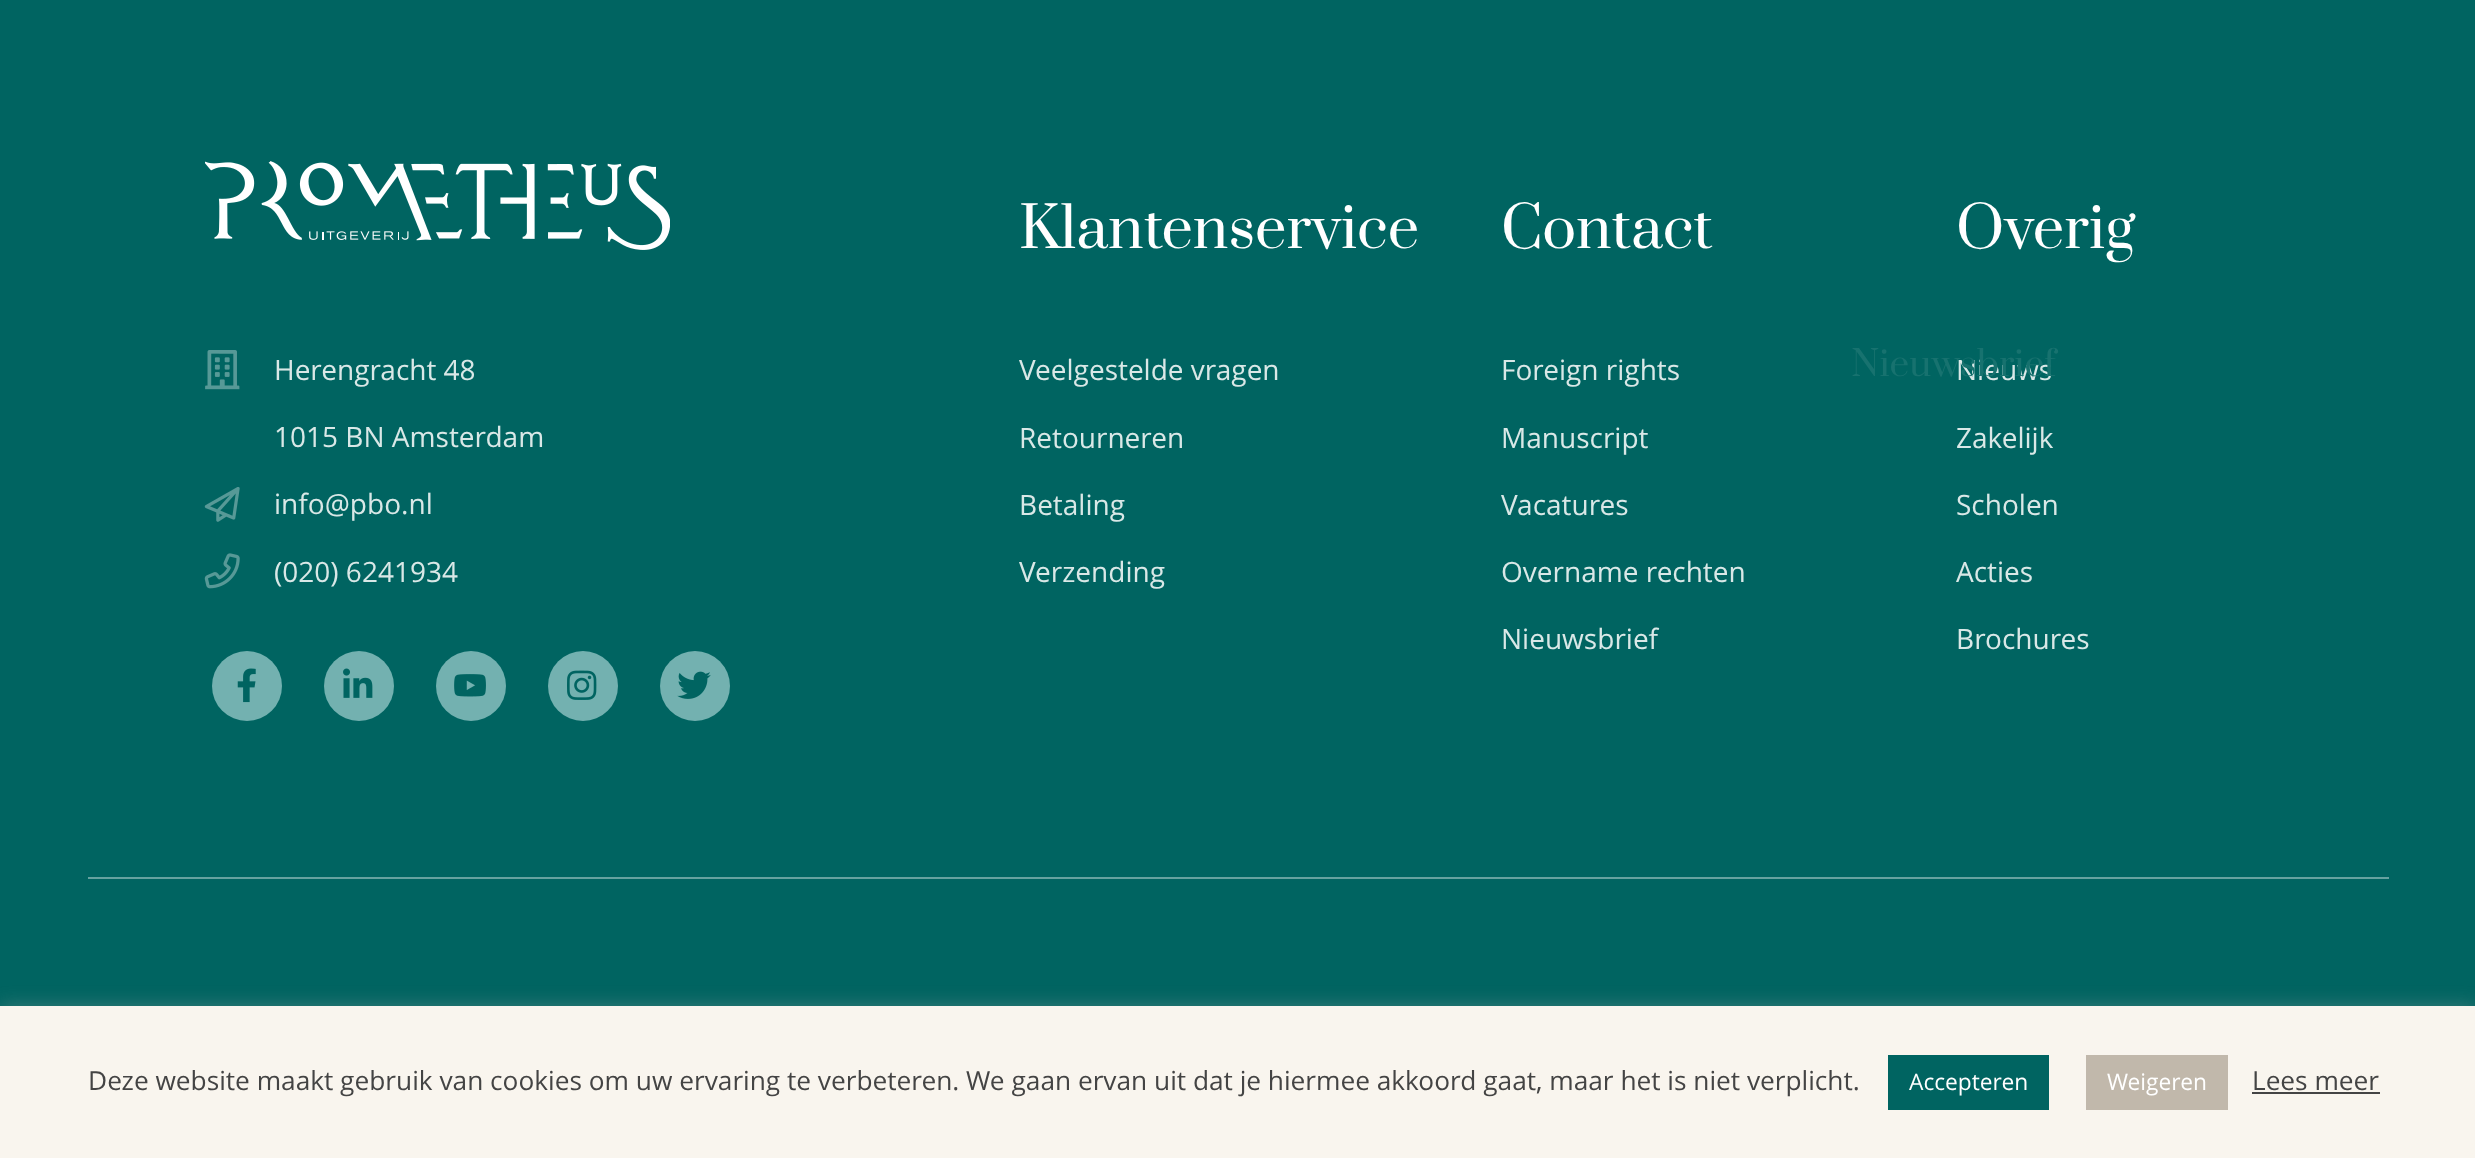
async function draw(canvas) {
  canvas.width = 2475
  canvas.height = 1158
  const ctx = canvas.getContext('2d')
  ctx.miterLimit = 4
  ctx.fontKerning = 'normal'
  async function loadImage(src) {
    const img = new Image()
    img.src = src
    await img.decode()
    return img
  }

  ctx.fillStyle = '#006461'
  ctx.fillRect(0, 0, 2475, 1158)
  ctx.drawImage(await loadImage('image0.png'), 205, 161, 465, 89)
  ctx.drawImage(await loadImage('image1.png'), 205, 350, 35, 40)
  ctx.font = '28px Open Sans'
  ctx.fillStyle = '#d9e8e7'
  ctx.fillText('Herengracht 48', 274, 380)
  ctx.fillText('1015 BN Amsterdam', 274, 447)
  ctx.drawImage(await loadImage('image2.png'), 204, 487, 36, 35)
  ctx.fillText('info@pbo.nl', 274, 514)
  ctx.drawImage(await loadImage('image3.png'), 204, 553, 36, 36)
  ctx.fillText('(020) 6241934', 274, 582)
  ctx.fillStyle = '#73b1b0'
  ctx.beginPath()
  ctx.arc(247, 686, 35, 0, 2 * Math.PI)
  ctx.fill()
  ctx.drawImage(await loadImage('image4.png'), 237, 668, 19, 35)
  ctx.beginPath()
  ctx.arc(359, 686, 35, 0, 2 * Math.PI)
  ctx.fill()
  ctx.drawImage(await loadImage('image5.png'), 343, 668, 30, 30)
  ctx.beginPath()
  ctx.arc(471, 686, 35, 0, 2 * Math.PI)
  ctx.fill()
  ctx.drawImage(await loadImage('image6.png'), 454, 674, 32, 23)
  ctx.beginPath()
  ctx.arc(583, 686, 35, 0, 2 * Math.PI)
  ctx.fill()
  ctx.drawImage(await loadImage('image7.png'), 567, 670, 30, 30)
  ctx.beginPath()
  ctx.arc(695, 686, 35, 0, 2 * Math.PI)
  ctx.fill()
  ctx.drawImage(await loadImage('image8.png'), 677, 671, 34, 28)
  ctx.font = '56px Prata'
  ctx.fillStyle = '#fff'
  ctx.fillText('Klantenservice', 1019, 248)
  ctx.font = '28px Open Sans'
  ctx.fillStyle = '#d9e8e7'
  ctx.fillText('Veelgestelde vragen', 1019, 380)
  ctx.fillText('Retourneren', 1019, 448)
  ctx.fillText('Betaling', 1019, 515)
  ctx.fillText('Verzending', 1019, 582)
  ctx.font = '56px Prata'
  ctx.fillStyle = '#fff'
  ctx.fillText('Contact', 1501, 248)
  ctx.font = '28px Open Sans'
  ctx.fillStyle = '#d9e8e7'
  ctx.fillText('Foreign rights', 1501, 380)
  ctx.fillText('Manuscript', 1501, 448)
  ctx.fillText('Vacatures', 1501, 515)
  ctx.fillText('Overname rechten', 1501, 582)
  ctx.fillText('Nieuwsbrief', 1501, 649)
  ctx.font = '56px Prata'
  ctx.fillStyle = '#fff'
  ctx.fillText('Overig', 1956, 248)
  ctx.font = '28px Open Sans'
  ctx.fillStyle = '#d9e8e7'
  ctx.fillText('Nieuws', 1956, 380)
  ctx.fillText('Zakelijk', 1956, 448)
  ctx.fillText('Scholen', 1956, 515)
  ctx.fillText('Acties', 1956, 582)
  ctx.fillText('Brochures', 1956, 649)
  ctx.fillStyle = '#66a2a0'
  ctx.fillRect(88, 877, 2301, 2)
  ctx.font = '35px Prata'
  ctx.fillStyle = '#17726f'
  ctx.fillText('Nieuwsbrief', 1851, 376)
  ctx.fillStyle = '#acabab4d'
  ctx.filter = 'blur(9px)'
  ctx.beginPath()
  ctx.rect(0, 1005, 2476, 152)
  ctx.fill()
  ctx.filter = 'none'
  ctx.fillStyle = '#f9f5ee'
  ctx.fillRect(0, 1006, 2475, 152)
  ctx.font = '26.25px Open Sans'
  ctx.fillStyle = '#444'
  ctx.fillText('Deze website maakt gebruik van cookies om uw ervaring te verbeteren. We gaan ervan uit dat je hiermee akkoord gaat, maar het is niet verplicht.', 88, 1090)
  ctx.fillStyle = '#006461'
  ctx.fillRect(1888, 1055, 161, 55)
  ctx.font = '22.75px Open Sans'
  ctx.fillStyle = '#fff'
  ctx.fillText('Accepteren', 1909, 1090)
  ctx.fillStyle = '#c1b8ab'
  ctx.fillRect(2086, 1055, 142, 55)
  ctx.fillStyle = '#fff'
  ctx.fillText('Weigeren', 2107, 1090)
  ctx.font = '26.25px Open Sans'
  ctx.fillStyle = '#444'
  ctx.fillText('Lees meer', 2252, 1090)
  ctx.fillRect(2252, 1092, 128, 2)
}

draw(document.querySelector('canvas'))
